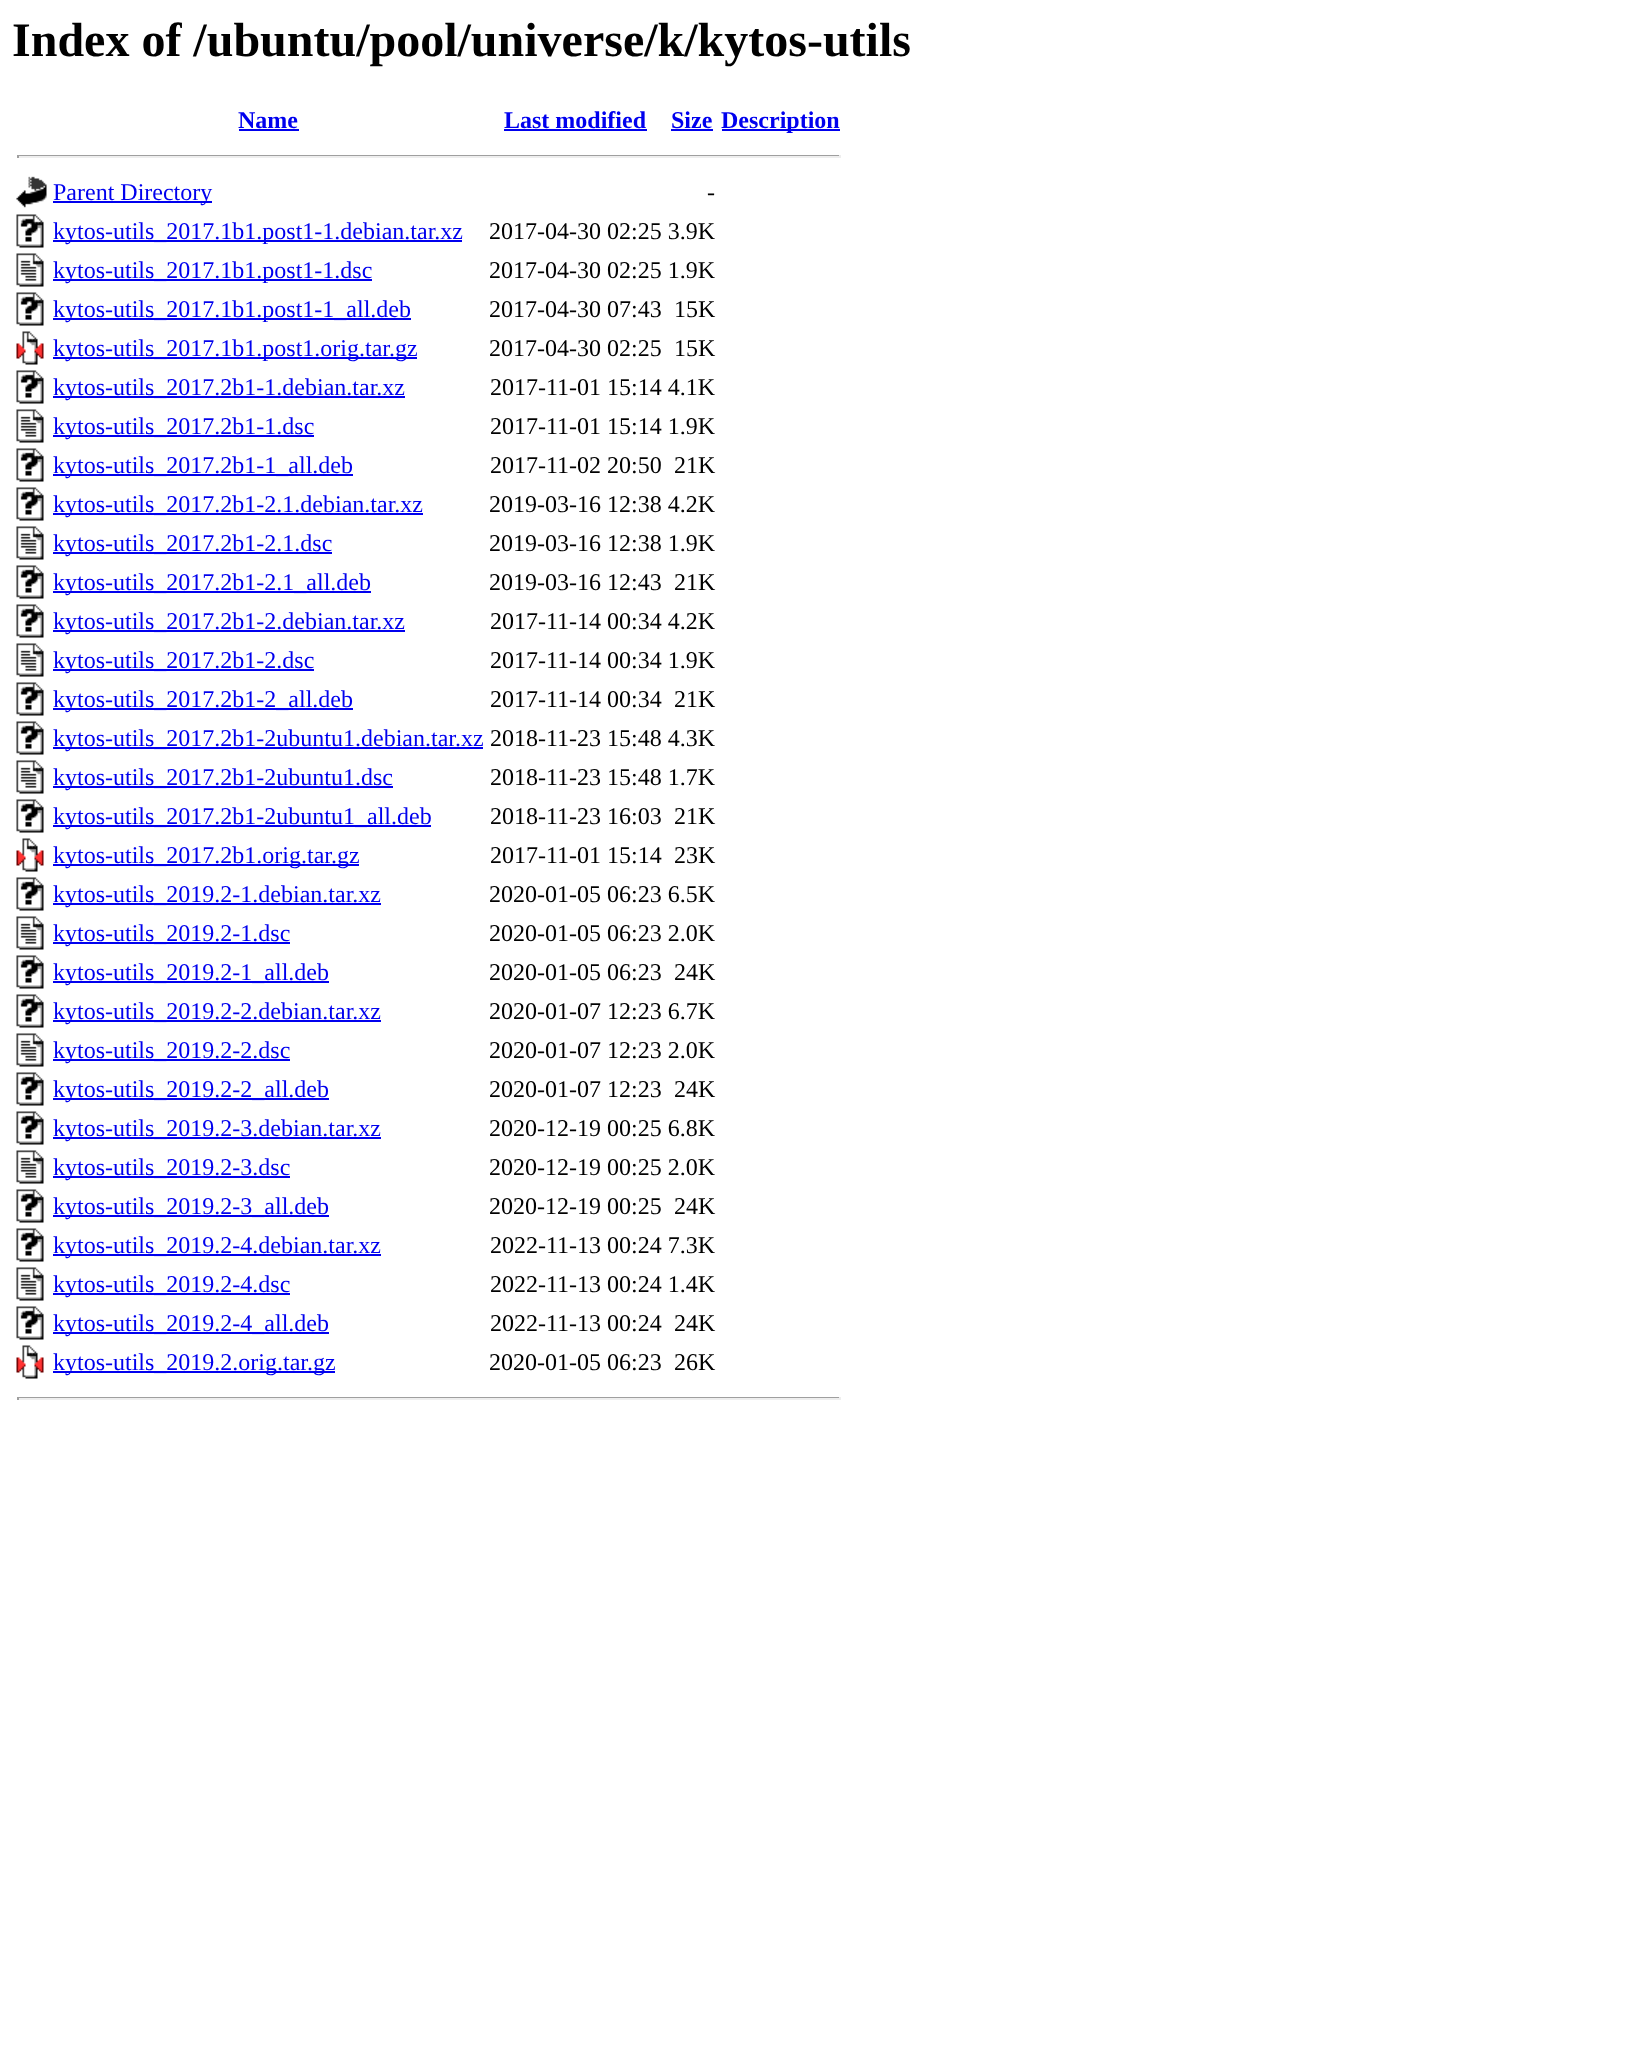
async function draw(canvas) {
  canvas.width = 1634
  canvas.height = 2061
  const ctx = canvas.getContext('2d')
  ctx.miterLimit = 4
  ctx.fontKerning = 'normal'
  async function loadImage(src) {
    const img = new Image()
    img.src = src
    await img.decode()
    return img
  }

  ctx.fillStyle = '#fff'
  ctx.fillRect(0, 0, 1634, 2061)
  ctx.font = 'bold 48px Liberation Serif'
  ctx.fillStyle = '#000'
  ctx.fillText('Index of /ubuntu/pool/universe/k/kytos-utils', 12, 56)
  ctx.font = 'bold 24px Liberation Serif'
  ctx.fillStyle = '#00e'
  ctx.fillText('Name', 238, 128)
  ctx.fillRect(239, 129, 60, 2)
  ctx.fillText('Last modified', 504, 128)
  ctx.fillRect(504, 129, 143, 2)
  ctx.fillText('Size', 671, 128)
  ctx.fillRect(671, 129, 42, 2)
  ctx.fillRect(722, 129, 118, 2)
  ctx.fillText('Description', 721, 128)
  ctx.fillStyle = '#9f9f9f'
  ctx.fillRect(17, 155, 823, 1)
  ctx.fillStyle = '#eee'
  ctx.fillRect(839, 155, 2, 3)
  ctx.fillRect(17, 156, 823, 2)
  ctx.fillStyle = '#9f9f9f'
  ctx.fillRect(17, 155, 2, 3)
  ctx.drawImage(await loadImage('image0.png'), 16, 176, 31, 32)
  ctx.fillStyle = '#00e'
  ctx.fillRect(53, 201, 159, 2)
  ctx.font = '24px Liberation Serif'
  ctx.fillText('Parent Directory', 53, 200)
  ctx.fillStyle = '#000'
  ctx.fillText('-', 707, 200)
  ctx.drawImage(await loadImage('image1.png'), 16, 214, 28, 34)
  ctx.fillStyle = '#00e'
  ctx.fillRect(53, 240, 409, 2)
  ctx.fillText('kytos-utils_2017.1b1.post1-1.debian.tar.xz', 53, 239)
  ctx.fillStyle = '#000'
  ctx.fillText('2017-04-30 02:25 3.9K', 489, 239)
  ctx.drawImage(await loadImage('image2.png'), 16, 253, 28, 34)
  ctx.fillStyle = '#00e'
  ctx.fillRect(53, 279, 319, 2)
  ctx.fillText('kytos-utils_2017.1b1.post1-1.dsc', 53, 278)
  ctx.fillStyle = '#000'
  ctx.fillText('2017-04-30 02:25 1.9K', 489, 278)
  ctx.drawImage(await loadImage('image1.png'), 16, 292, 28, 34)
  ctx.fillStyle = '#00e'
  ctx.fillRect(53, 318, 358, 2)
  ctx.fillText('kytos-utils_2017.1b1.post1-1_all.deb', 53, 317)
  ctx.fillStyle = '#000'
  ctx.fillText('2017-04-30 07:43', 489, 317)
  ctx.fillText('15K', 674, 317)
  ctx.drawImage(await loadImage('image3.png'), 16, 331, 28, 34)
  ctx.fillStyle = '#00e'
  ctx.fillRect(53, 357, 364, 2)
  ctx.fillText('kytos-utils_2017.1b1.post1.orig.tar.gz', 53, 356)
  ctx.fillStyle = '#000'
  ctx.fillText('2017-04-30 02:25', 489, 356)
  ctx.fillText('15K', 674, 356)
  ctx.drawImage(await loadImage('image1.png'), 16, 370, 28, 34)
  ctx.fillStyle = '#00e'
  ctx.fillRect(53, 396, 352, 2)
  ctx.fillText('kytos-utils_2017.2b1-1.debian.tar.xz', 53, 395)
  ctx.fillStyle = '#000'
  ctx.fillText('2017-11-01 15:14 4.1K', 490, 395)
  ctx.drawImage(await loadImage('image2.png'), 16, 409, 28, 34)
  ctx.fillStyle = '#00e'
  ctx.fillRect(53, 435, 261, 2)
  ctx.fillText('kytos-utils_2017.2b1-1.dsc', 53, 434)
  ctx.fillStyle = '#000'
  ctx.fillText('2017-11-01 15:14 1.9K', 490, 434)
  ctx.drawImage(await loadImage('image1.png'), 16, 448, 28, 34)
  ctx.fillStyle = '#00e'
  ctx.fillRect(53, 474, 300, 2)
  ctx.fillText('kytos-utils_2017.2b1-1_all.deb', 53, 473)
  ctx.fillStyle = '#000'
  ctx.fillText('2017-11-02 20:50', 490, 473)
  ctx.fillText('21K', 674, 473)
  ctx.drawImage(await loadImage('image1.png'), 16, 487, 28, 34)
  ctx.fillStyle = '#00e'
  ctx.fillRect(53, 513, 370, 2)
  ctx.fillText('kytos-utils_2017.2b1-2.1.debian.tar.xz', 53, 512)
  ctx.fillStyle = '#000'
  ctx.fillText('2019-03-16 12:38 4.2K', 489, 512)
  ctx.drawImage(await loadImage('image2.png'), 16, 526, 28, 34)
  ctx.fillStyle = '#00e'
  ctx.fillRect(53, 552, 279, 2)
  ctx.fillText('kytos-utils_2017.2b1-2.1.dsc', 53, 551)
  ctx.fillStyle = '#000'
  ctx.fillText('2019-03-16 12:38 1.9K', 489, 551)
  ctx.drawImage(await loadImage('image1.png'), 16, 565, 28, 34)
  ctx.fillStyle = '#00e'
  ctx.fillRect(53, 591, 318, 2)
  ctx.fillText('kytos-utils_2017.2b1-2.1_all.deb', 53, 590)
  ctx.fillStyle = '#000'
  ctx.fillText('2019-03-16 12:43', 489, 590)
  ctx.fillText('21K', 674, 590)
  ctx.drawImage(await loadImage('image1.png'), 16, 604, 28, 34)
  ctx.fillStyle = '#00e'
  ctx.fillRect(53, 630, 352, 2)
  ctx.fillText('kytos-utils_2017.2b1-2.debian.tar.xz', 53, 629)
  ctx.fillStyle = '#000'
  ctx.fillText('2017-11-14 00:34 4.2K', 490, 629)
  ctx.drawImage(await loadImage('image2.png'), 16, 643, 28, 34)
  ctx.fillStyle = '#00e'
  ctx.fillRect(53, 669, 261, 2)
  ctx.fillText('kytos-utils_2017.2b1-2.dsc', 53, 668)
  ctx.fillStyle = '#000'
  ctx.fillText('2017-11-14 00:34 1.9K', 490, 668)
  ctx.drawImage(await loadImage('image1.png'), 16, 682, 28, 34)
  ctx.fillStyle = '#00e'
  ctx.fillRect(53, 708, 300, 2)
  ctx.fillText('kytos-utils_2017.2b1-2_all.deb', 53, 707)
  ctx.fillStyle = '#000'
  ctx.fillText('2017-11-14 00:34', 490, 707)
  ctx.fillText('21K', 674, 707)
  ctx.drawImage(await loadImage('image1.png'), 16, 721, 28, 34)
  ctx.fillStyle = '#00e'
  ctx.fillRect(53, 747, 430, 2)
  ctx.fillText('kytos-utils_2017.2b1-2ubuntu1.debian.tar.xz', 53, 746)
  ctx.fillStyle = '#000'
  ctx.fillText('2018-11-23 15:48 4.3K', 490, 746)
  ctx.drawImage(await loadImage('image2.png'), 16, 760, 28, 34)
  ctx.fillStyle = '#00e'
  ctx.fillRect(53, 786, 340, 2)
  ctx.fillText('kytos-utils_2017.2b1-2ubuntu1.dsc', 53, 785)
  ctx.fillStyle = '#000'
  ctx.fillText('2018-11-23 15:48 1.7K', 490, 785)
  ctx.drawImage(await loadImage('image1.png'), 16, 799, 28, 34)
  ctx.fillStyle = '#00e'
  ctx.fillRect(53, 825, 378, 2)
  ctx.fillText('kytos-utils_2017.2b1-2ubuntu1_all.deb', 53, 824)
  ctx.fillStyle = '#000'
  ctx.fillText('2018-11-23 16:03', 490, 824)
  ctx.fillText('21K', 674, 824)
  ctx.drawImage(await loadImage('image3.png'), 16, 838, 28, 34)
  ctx.fillStyle = '#00e'
  ctx.fillRect(53, 864, 306, 2)
  ctx.fillText('kytos-utils_2017.2b1.orig.tar.gz', 53, 863)
  ctx.fillStyle = '#000'
  ctx.fillText('2017-11-01 15:14', 490, 863)
  ctx.fillText('23K', 674, 863)
  ctx.drawImage(await loadImage('image1.png'), 16, 877, 28, 34)
  ctx.fillStyle = '#00e'
  ctx.fillRect(53, 903, 328, 2)
  ctx.fillText('kytos-utils_2019.2-1.debian.tar.xz', 53, 902)
  ctx.fillStyle = '#000'
  ctx.fillText('2020-01-05 06:23 6.5K', 489, 902)
  ctx.drawImage(await loadImage('image2.png'), 16, 916, 28, 34)
  ctx.fillStyle = '#00e'
  ctx.fillRect(53, 942, 237, 2)
  ctx.fillText('kytos-utils_2019.2-1.dsc', 53, 941)
  ctx.fillStyle = '#000'
  ctx.fillText('2020-01-05 06:23 2.0K', 489, 941)
  ctx.drawImage(await loadImage('image1.png'), 16, 955, 28, 34)
  ctx.fillStyle = '#00e'
  ctx.fillRect(53, 981, 276, 2)
  ctx.fillText('kytos-utils_2019.2-1_all.deb', 53, 980)
  ctx.fillStyle = '#000'
  ctx.fillText('2020-01-05 06:23', 489, 980)
  ctx.fillText('24K', 674, 980)
  ctx.drawImage(await loadImage('image1.png'), 16, 994, 28, 34)
  ctx.fillStyle = '#00e'
  ctx.fillRect(53, 1020, 328, 2)
  ctx.fillText('kytos-utils_2019.2-2.debian.tar.xz', 53, 1019)
  ctx.fillStyle = '#000'
  ctx.fillText('2020-01-07 12:23 6.7K', 489, 1019)
  ctx.drawImage(await loadImage('image2.png'), 16, 1033, 28, 34)
  ctx.fillStyle = '#00e'
  ctx.fillRect(53, 1059, 237, 2)
  ctx.fillText('kytos-utils_2019.2-2.dsc', 53, 1058)
  ctx.fillStyle = '#000'
  ctx.fillText('2020-01-07 12:23 2.0K', 489, 1058)
  ctx.drawImage(await loadImage('image1.png'), 16, 1072, 28, 34)
  ctx.fillStyle = '#00e'
  ctx.fillRect(53, 1098, 276, 2)
  ctx.fillText('kytos-utils_2019.2-2_all.deb', 53, 1097)
  ctx.fillStyle = '#000'
  ctx.fillText('2020-01-07 12:23', 489, 1097)
  ctx.fillText('24K', 674, 1097)
  ctx.drawImage(await loadImage('image1.png'), 16, 1111, 28, 34)
  ctx.fillStyle = '#00e'
  ctx.fillRect(53, 1137, 328, 2)
  ctx.fillText('kytos-utils_2019.2-3.debian.tar.xz', 53, 1136)
  ctx.fillStyle = '#000'
  ctx.fillText('2020-12-19 00:25 6.8K', 489, 1136)
  ctx.drawImage(await loadImage('image2.png'), 16, 1150, 28, 34)
  ctx.fillStyle = '#00e'
  ctx.fillRect(53, 1176, 237, 2)
  ctx.fillText('kytos-utils_2019.2-3.dsc', 53, 1175)
  ctx.fillStyle = '#000'
  ctx.fillText('2020-12-19 00:25 2.0K', 489, 1175)
  ctx.drawImage(await loadImage('image1.png'), 16, 1189, 28, 34)
  ctx.fillStyle = '#00e'
  ctx.fillRect(53, 1215, 276, 2)
  ctx.fillText('kytos-utils_2019.2-3_all.deb', 53, 1214)
  ctx.fillStyle = '#000'
  ctx.fillText('2020-12-19 00:25', 489, 1214)
  ctx.fillText('24K', 674, 1214)
  ctx.drawImage(await loadImage('image1.png'), 16, 1228, 28, 34)
  ctx.fillStyle = '#00e'
  ctx.fillRect(53, 1254, 328, 2)
  ctx.fillText('kytos-utils_2019.2-4.debian.tar.xz', 53, 1253)
  ctx.fillStyle = '#000'
  ctx.fillText('2022-11-13 00:24 7.3K', 490, 1253)
  ctx.drawImage(await loadImage('image2.png'), 16, 1267, 28, 34)
  ctx.fillStyle = '#00e'
  ctx.fillRect(53, 1293, 237, 2)
  ctx.fillText('kytos-utils_2019.2-4.dsc', 53, 1292)
  ctx.fillStyle = '#000'
  ctx.fillText('2022-11-13 00:24 1.4K', 490, 1292)
  ctx.drawImage(await loadImage('image1.png'), 16, 1306, 28, 34)
  ctx.fillStyle = '#00e'
  ctx.fillRect(53, 1332, 276, 2)
  ctx.fillText('kytos-utils_2019.2-4_all.deb', 53, 1331)
  ctx.fillStyle = '#000'
  ctx.fillText('2022-11-13 00:24', 490, 1331)
  ctx.fillText('24K', 674, 1331)
  ctx.drawImage(await loadImage('image3.png'), 16, 1345, 28, 34)
  ctx.fillStyle = '#00e'
  ctx.fillRect(53, 1371, 282, 2)
  ctx.fillText('kytos-utils_2019.2.orig.tar.gz', 53, 1370)
  ctx.fillStyle = '#000'
  ctx.fillText('2020-01-05 06:23', 489, 1370)
  ctx.fillText('26K', 674, 1370)
  ctx.fillStyle = '#9f9f9f'
  ctx.fillRect(17, 1397, 823, 1)
  ctx.fillStyle = '#eee'
  ctx.fillRect(839, 1397, 2, 3)
  ctx.fillRect(17, 1398, 823, 2)
  ctx.fillStyle = '#9f9f9f'
  ctx.fillRect(17, 1397, 2, 3)
}

draw(document.querySelector('canvas'))
